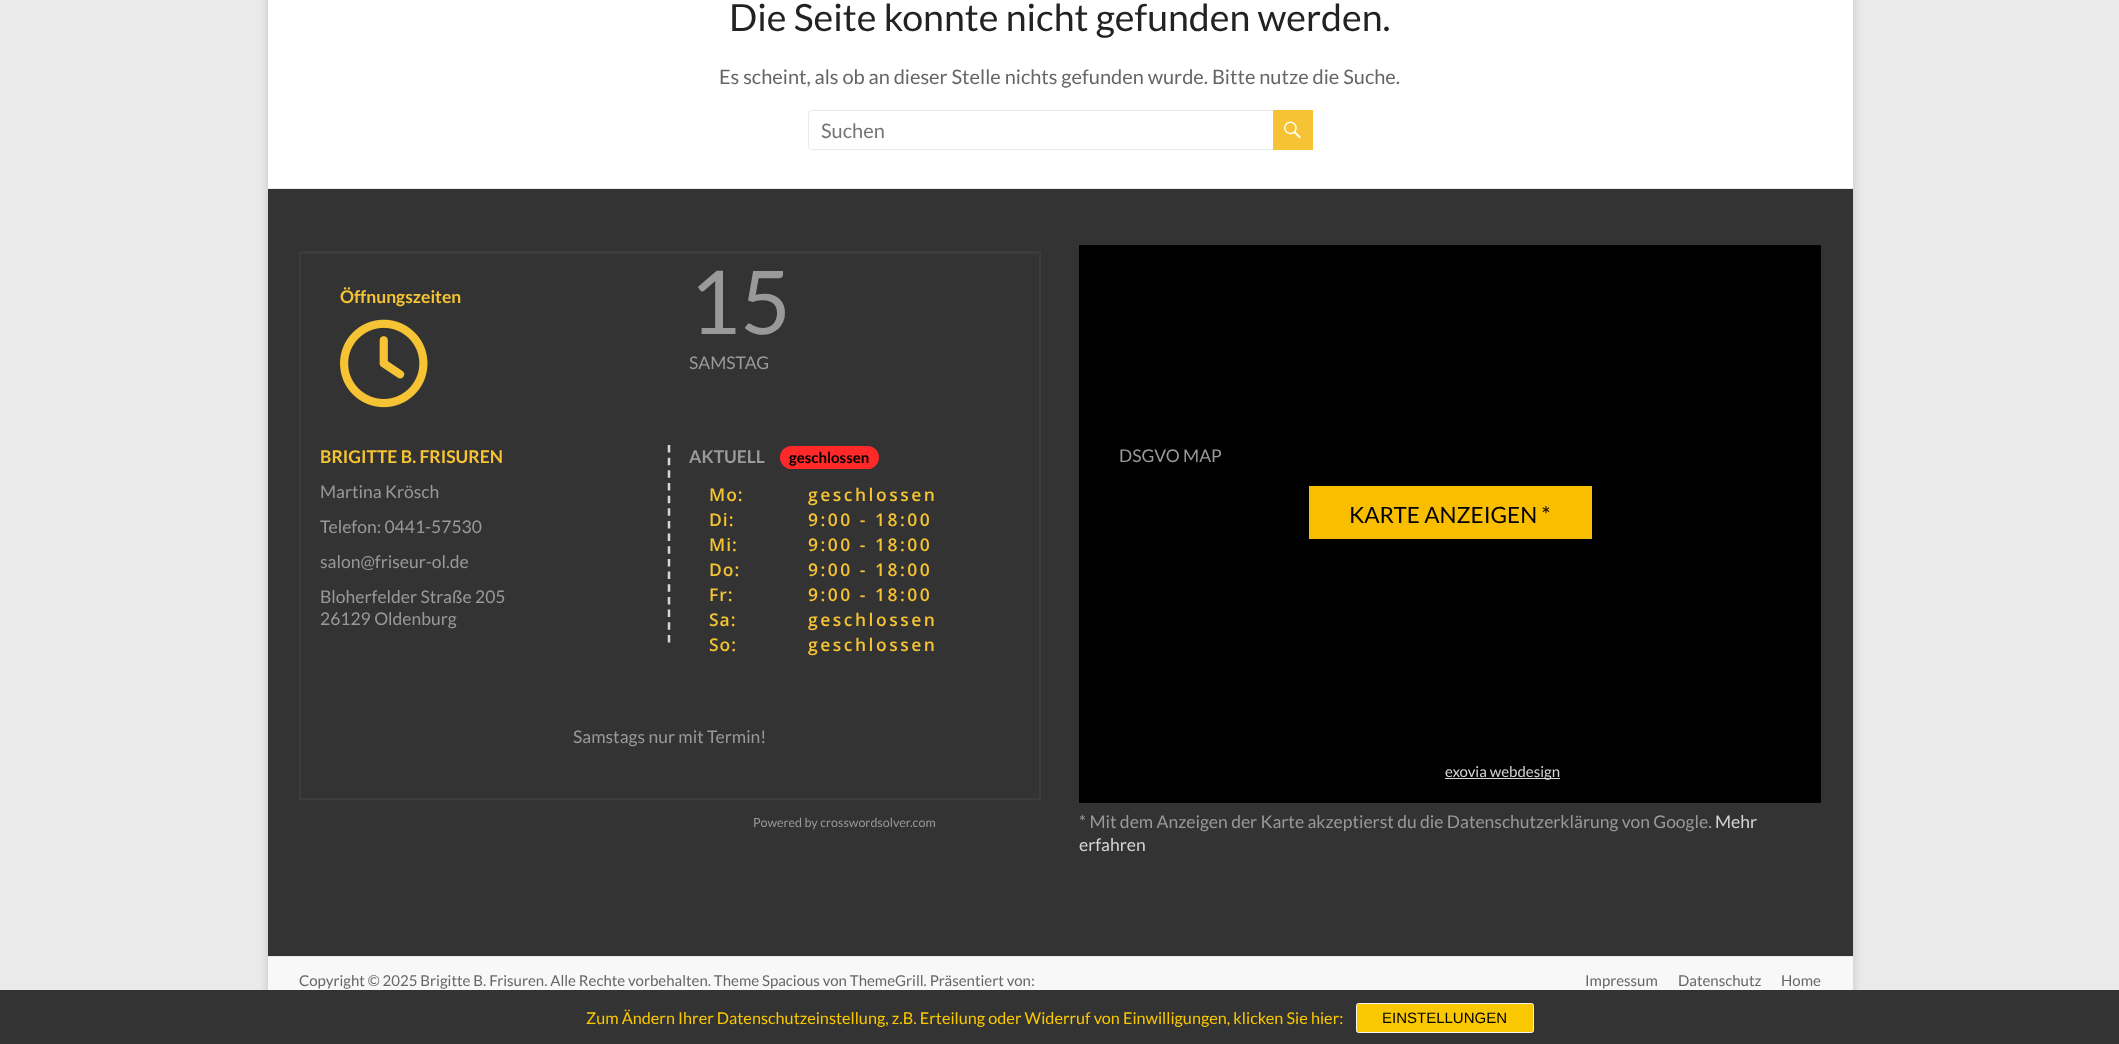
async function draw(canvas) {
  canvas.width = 2119
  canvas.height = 1044
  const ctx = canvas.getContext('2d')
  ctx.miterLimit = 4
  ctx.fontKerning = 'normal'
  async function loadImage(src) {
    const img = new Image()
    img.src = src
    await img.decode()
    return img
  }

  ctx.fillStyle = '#eaeaea'
  ctx.fillRect(0, 0, 2119, 1044)
  ctx.fillStyle = '#6464644d'
  ctx.filter = 'blur(4px)'
  ctx.beginPath()
  ctx.rect(268, -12, 1585, 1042)
  ctx.fill()
  ctx.filter = 'none'
  ctx.fillStyle = '#fff'
  ctx.fillRect(268, 0, 1585, 188)
  ctx.font = '37.5px Lato'
  ctx.fillStyle = '#222'
  ctx.fillText('Die Seite konnte nicht gefunden werden.', 729, 31)
  ctx.font = '20px Lato'
  ctx.fillStyle = '#666'
  ctx.fillText('Es scheint, als ob an dieser Stelle nichts gefunden wurde. Bitte nutze die Suche.', 719, 84)
  ctx.beginPath()
  ctx.roundRect(808.5, 110.5, 467, 39, 3.5)
  ctx.strokeStyle = '#eaeaea'
  ctx.stroke()
  ctx.fillStyle = '#757575'
  ctx.fillText('Suchen', 821, 138)
  ctx.fillStyle = '#f5c333'
  ctx.fillRect(1273, 110, 40, 40)
  ctx.drawImage(await loadImage('image0.png'), 1284, 121, 17, 18)
  ctx.fillStyle = '#333'
  ctx.fillRect(268, 189, 1585, 767)
  ctx.fillStyle = '#eaeaea'
  ctx.fillRect(268, 188, 1585, 1)
  ctx.strokeStyle = '#3c3c3b'
  ctx.lineWidth = 3
  ctx.strokeRect(300.5, 252.5, 739, 546)
  ctx.fillStyle = '#333'
  ctx.fillRect(301, 254, 738, 544)
  ctx.font = 'bold 17.5px Lato'
  ctx.fillStyle = '#f5c333'
  ctx.fillText('Öffnungszeiten', 340, 303)
  ctx.font = '88px Lato'
  ctx.fillStyle = '#999'
  ctx.fillText('15', 689, 334)
  ctx.font = '17.5px Lato'
  ctx.fillText('SAMSTAG', 689, 369)
  ctx.drawImage(await loadImage('image1.png'), 340, 319, 88, 89)
  ctx.beginPath()
  ctx.moveTo(669, 445)
  ctx.lineTo(669, 642.5)
  ctx.strokeStyle = '#d6d6d6'
  ctx.lineWidth = 2.5
  ctx.setLineDash([7.5, 5.16])
  ctx.stroke()
  ctx.font = 'bold 17.5px Lato'
  ctx.fillStyle = '#f5c333'
  ctx.fillText('BRIGITTE B. FRISUREN', 320, 463)
  ctx.font = '17.5px Lato'
  ctx.fillStyle = '#999'
  ctx.fillText('Martina Krösch', 320, 498)
  ctx.fillText('Telefon: 0441-57530', 320, 533)
  ctx.fillText('salon@friseur-ol.de', 320, 568)
  ctx.fillText('Bloherfelder Straße 205', 320, 603)
  ctx.fillText('26129 Oldenburg', 320, 625)
  ctx.font = 'bold 17.5px Lato'
  ctx.fillText('AKTUELL', 689, 463)
  ctx.fillStyle = '#ff2929'
  ctx.beginPath()
  ctx.roundRect(780, 446, 99, 23, 11.5)
  ctx.fill()
  ctx.font = 'bold 15px Lato'
  ctx.fillStyle = '#000'
  ctx.fillText('geschlossen', 789, 463)
  ctx.letterSpacing = '1px'
  ctx.font = '600 17.5px Open Sans'
  ctx.fillStyle = '#f5c333'
  ctx.fillText('Mo:', 709, 501)
  ctx.letterSpacing = '2.5px'
  ctx.fillText('geschlossen', 808, 501)
  ctx.letterSpacing = '1px'
  ctx.fillText('Di:', 709, 526)
  ctx.letterSpacing = '2.5px'
  ctx.fillText('9:00 - 18:00', 808, 526)
  ctx.letterSpacing = '1px'
  ctx.fillText('Mi:', 709, 551)
  ctx.letterSpacing = '2.5px'
  ctx.fillText('9:00 - 18:00', 808, 551)
  ctx.letterSpacing = '1px'
  ctx.fillText('Do:', 709, 576)
  ctx.letterSpacing = '2.5px'
  ctx.fillText('9:00 - 18:00', 808, 576)
  ctx.letterSpacing = '1px'
  ctx.fillText('Fr:', 709, 601)
  ctx.letterSpacing = '2.5px'
  ctx.fillText('9:00 - 18:00', 808, 601)
  ctx.letterSpacing = '1px'
  ctx.fillText('Sa:', 709, 626)
  ctx.letterSpacing = '2.5px'
  ctx.fillText('geschlossen', 808, 626)
  ctx.letterSpacing = '1px'
  ctx.fillText('So:', 709, 651)
  ctx.letterSpacing = '2.5px'
  ctx.fillText('geschlossen', 808, 651)
  ctx.letterSpacing = '0px'
  ctx.font = '17.5px Lato'
  ctx.fillStyle = '#999'
  ctx.fillText('Samstags nur mit Termin!', 573, 743)
  ctx.font = '12.5px Lato'
  ctx.fillText('Powered by crosswordsolver.com', 753, 827)
  ctx.fillStyle = '#000'
  ctx.fillRect(1079, 245, 742, 558)
  ctx.font = '17.5px Lato'
  ctx.fillStyle = '#999'
  ctx.fillText('DSGVO MAP', 1119, 462)
  ctx.fillStyle = '#fabe00'
  ctx.fillRect(1309, 486, 283, 53)
  ctx.font = '22.5px Lato'
  ctx.fillStyle = '#000'
  ctx.fillText('KARTE ANZEIGEN *', 1349, 523)
  ctx.fillStyle = '#d5d5d5'
  ctx.fillRect(1445, 778, 115, 1)
  ctx.font = '15px Lato'
  ctx.fillText('exovia webdesign', 1445, 777)
  ctx.font = '17.5px Lato'
  ctx.fillStyle = '#999'
  ctx.fillText('* Mit dem Anzeigen der Karte akzeptierst du die Datenschutzerklärung von Google.', 1079, 828)
  ctx.fillStyle = '#d5d5d5'
  ctx.fillText('Mehr', 1715, 828)
  ctx.fillText('erfahren', 1079, 851)
  ctx.fillStyle = '#f8f8f8'
  ctx.fillRect(268, 957, 1585, 33)
  ctx.fillStyle = '#eaeaea'
  ctx.fillRect(268, 956, 1585, 1)
  ctx.font = '15px Lato'
  ctx.fillStyle = '#666'
  ctx.fillText('Copyright © 2025 Brigitte B. Frisuren. Alle Rechte vorbehalten. Theme Spacious von ThemeGrill. Präsentiert von:', 299, 986)
  ctx.fillText('Impressum', 1585, 986)
  ctx.fillText('Datenschutz', 1678, 986)
  ctx.fillText('Home', 1781, 986)
  ctx.fillStyle = '#333'
  ctx.fillRect(0, 990, 2119, 54)
  ctx.font = '16.25px Lato'
  ctx.fillStyle = '#fac800'
  ctx.fillText('Zum Ändern Ihrer Datenschutzeinstellung, z.B. Erteilung oder Widerruf von Einwilligungen, klicken Sie hier:', 586, 1024)
  ctx.beginPath()
  ctx.roundRect(1356.5, 1003.5, 177, 29, 2)
  ctx.fill()
  ctx.strokeStyle = '#f3f3f3'
  ctx.lineWidth = 1
  ctx.setLineDash([])
  ctx.stroke()
  ctx.font = '15px Liberation Sans'
  ctx.fillStyle = '#000'
  ctx.fillText('EINSTELLUNGEN', 1382, 1023)
}

draw(document.querySelector('canvas'))
